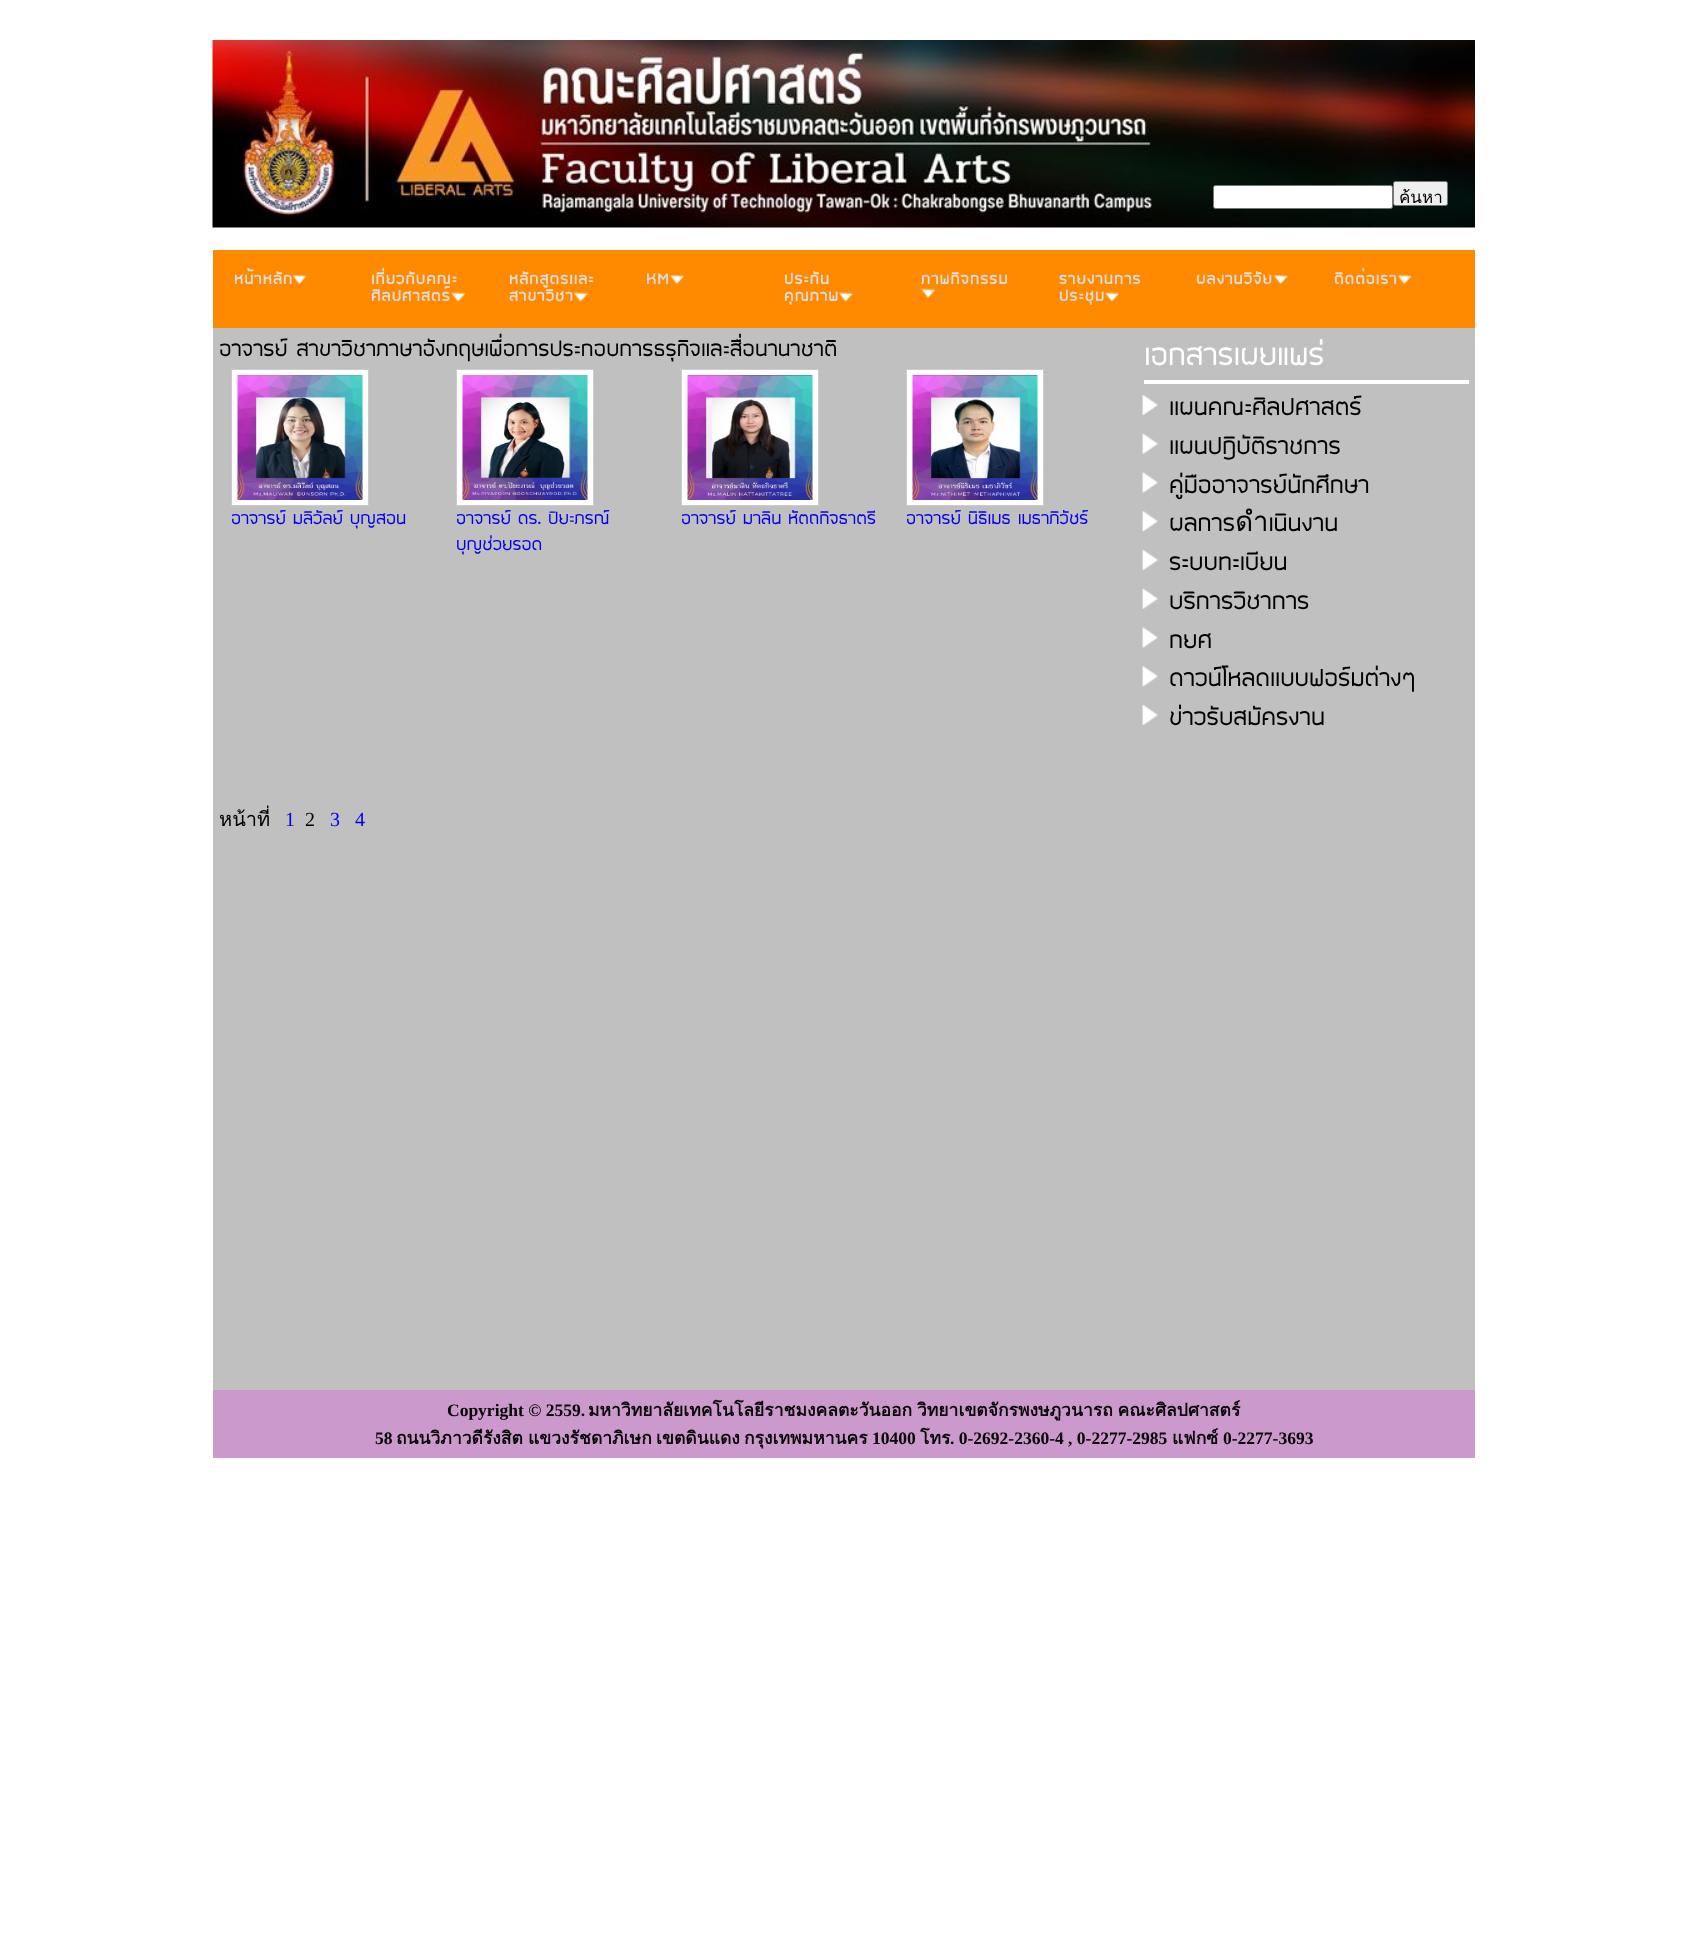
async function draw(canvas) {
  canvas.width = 1693
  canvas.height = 1953
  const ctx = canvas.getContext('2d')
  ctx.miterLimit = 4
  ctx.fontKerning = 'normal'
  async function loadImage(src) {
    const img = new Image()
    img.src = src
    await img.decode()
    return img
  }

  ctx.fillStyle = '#fff'
  ctx.fillRect(0, 0, 1693, 1953)
  ctx.drawImage(await loadImage('image0.png'), 212, 40, 1263, 188)
  ctx.beginPath()
  ctx.roundRect(1213.5, 185.5, 179, 23, 2)
  ctx.fill()
  ctx.strokeStyle = '#767676'
  ctx.stroke()
  ctx.fillStyle = '#efefef'
  ctx.beginPath()
  ctx.roundRect(1393.5, 181.5, 54, 24, 2)
  ctx.fill()
  ctx.stroke()
  ctx.save()
  ctx.beginPath()
  ctx.rect(1395, 184, 50, 20)
  ctx.clip()
  ctx.font = '17px Loma'
  ctx.fillStyle = '#000'
  ctx.fillText('ค้นหา', 1399, 203)
  ctx.restore()
  ctx.fillStyle = '#ff8a00'
  ctx.fillRect(213, 250, 1262, 78)
  ctx.letterSpacing = '1.25px'
  ctx.font = 'bold 17.5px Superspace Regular'
  ctx.fillStyle = '#ddd'
  ctx.fillText('หน้าหลัก', 234, 284)
  ctx.drawImage(await loadImage('image1.png'), 292, 275, 15, 9)
  ctx.fillText('เกี่ยวกับคณะ', 371, 284)
  ctx.fillText('ศิลปศาสตร์', 371, 301)
  ctx.drawImage(await loadImage('image2.png'), 451, 292, 14, 10)
  ctx.fillText('หลักสูตรเเละ', 509, 284)
  ctx.fillText('สาขาวิชา', 509, 301)
  ctx.drawImage(await loadImage('image3.png'), 573, 292, 15, 10)
  ctx.fillText('KM', 646, 284)
  ctx.drawImage(await loadImage('image4.png'), 670, 275, 14, 9)
  ctx.fillText('ประกัน', 784, 284)
  ctx.fillText('คุณภาพ', 784, 301)
  ctx.drawImage(await loadImage('image5.png'), 838, 292, 15, 10)
  ctx.fillText('ภาพกิจกรรม', 921, 284)
  ctx.drawImage(await loadImage('image6.png'), 921, 288, 14, 10)
  ctx.fillText('รายงานการ', 1059, 284)
  ctx.fillText('ประชุม', 1059, 301)
  ctx.drawImage(await loadImage('image7.png'), 1105, 292, 14, 10)
  ctx.fillText('ผลงานวิจัย', 1196, 284)
  ctx.drawImage(await loadImage('image8.png'), 1273, 275, 15, 9)
  ctx.fillText('ติดต่อเรา', 1334, 284)
  ctx.drawImage(await loadImage('image9.png'), 1397, 275, 15, 9)
  ctx.fillStyle = '#c0c0c0'
  ctx.fillRect(213, 328, 1262, 1062)
  ctx.letterSpacing = '0px'
  ctx.font = '25px Superspace Regular'
  ctx.fillStyle = '#000'
  ctx.fillText('อาจารย์ สาขาวิชาภาษาอังกฤษเพื่อการประกอบการธรุกิจเเละสื่อนานาชาติ', 219, 356)
  ctx.fillStyle = '#fff'
  ctx.beginPath()
  ctx.rect(231.5, 369.5, 137, 136)
  ctx.fill()
  ctx.strokeStyle = '#ccc'
  ctx.stroke()
  ctx.drawImage(await loadImage('image10.png'), 237, 375, 126, 125)
  ctx.font = '20px Superspace Regular'
  ctx.fillStyle = '#00e'
  ctx.fillText('อาจารย์ มลิวัลย์ บุญสอน', 231, 524)
  ctx.fillStyle = '#fff'
  ctx.beginPath()
  ctx.rect(456.5, 369.5, 137, 136)
  ctx.fill()
  ctx.stroke()
  ctx.drawImage(await loadImage('image11.png'), 462, 375, 126, 125)
  ctx.fillStyle = '#00e'
  ctx.fillText('อาจารย์ ดร. ปิยะภรณ์', 456, 524)
  ctx.fillText('บุญช่วยรอด', 456, 550)
  ctx.fillStyle = '#fff'
  ctx.beginPath()
  ctx.rect(681.5, 369.5, 137, 136)
  ctx.fill()
  ctx.stroke()
  ctx.drawImage(await loadImage('image12.png'), 687, 375, 126, 125)
  ctx.fillStyle = '#00e'
  ctx.fillText('อาจารย์ มาลิน หัตถกิจธาตรี', 681, 524)
  ctx.fillStyle = '#fff'
  ctx.beginPath()
  ctx.rect(906.5, 369.5, 137, 136)
  ctx.fill()
  ctx.stroke()
  ctx.drawImage(await loadImage('image13.png'), 912, 375, 126, 125)
  ctx.fillStyle = '#00e'
  ctx.fillText('อาจารย์ นิธิเมธ เมธาภิวัชร์', 906, 524)
  ctx.font = '20px Loma'
  ctx.fillStyle = '#000'
  ctx.fillText('หน้าที่', 219, 826)
  ctx.font = '20px Liberation Serif'
  ctx.fillStyle = '#00e'
  ctx.fillText('1', 285, 826)
  ctx.fillStyle = '#000'
  ctx.fillText('2', 305, 826)
  ctx.fillStyle = '#00e'
  ctx.fillText('3', 330, 826)
  ctx.fillText('4', 355, 826)
  ctx.fillStyle = '#fff'
  ctx.fillRect(1144, 380, 325, 4)
  ctx.font = '35px Superspace Regular'
  ctx.fillText('เอกสารเผยแพร่', 1144, 365)
  ctx.drawImage(await loadImage('image14.png'), 1142, 395, 16, 20)
  ctx.font = '27.5px Superspace Regular'
  ctx.fillStyle = '#000'
  ctx.fillText('เเผนคณะศิลปศาสตร์', 1169, 415)
  ctx.drawImage(await loadImage('image15.png'), 1142, 433, 16, 21)
  ctx.fillText('เเผนปฎิบัติราชการ', 1169, 454)
  ctx.drawImage(await loadImage('image16.png'), 1142, 472, 16, 21)
  ctx.fillText('คู่มืออาจารย์นักศึกษา', 1169, 493)
  ctx.drawImage(await loadImage('image17.png'), 1142, 511, 16, 21)
  ctx.fillText('ผลการดำเนินงาน', 1169, 531)
  ctx.drawImage(await loadImage('image14.png'), 1142, 550, 16, 20)
  ctx.fillText('ระบบทะเบียน', 1169, 570)
  ctx.drawImage(await loadImage('image15.png'), 1142, 588, 16, 21)
  ctx.fillText('บริการวิชาการ', 1169, 609)
  ctx.drawImage(await loadImage('image16.png'), 1142, 627, 16, 21)
  ctx.fillText('กยศ', 1169, 648)
  ctx.drawImage(await loadImage('image17.png'), 1142, 666, 16, 21)
  ctx.fillText('ดาวน์โหลดเเบบฟอร์มต่างๆ', 1169, 686)
  ctx.drawImage(await loadImage('image14.png'), 1142, 705, 16, 20)
  ctx.fillText('ข่าวรับสมัครงาน', 1169, 725)
  ctx.fillStyle = '#c9c'
  ctx.fillRect(213, 1390, 1262, 68)
  ctx.font = 'bold 17.5px Liberation Serif'
  ctx.fillStyle = '#000'
  ctx.fillText('Copyright © 2559.', 447, 1416)
  ctx.wordSpacing = '-1px'
  ctx.font = 'bold 17.5px Loma'
  ctx.fillText('มหาวิทยาลัยเทคโนโลยีราชมงคลตะวันออก วิทยาเขตจักรพงษภูวนารถ คณะศิลปศาสตร์', 588, 1416)
  ctx.wordSpacing = '0px'
  ctx.font = 'bold 17.5px Liberation Serif'
  ctx.fillText('58', 375, 1444)
  ctx.font = 'bold 17.5px Loma'
  ctx.fillText('ถนนวิภาวดีรังสิต', 396, 1444)
  ctx.fillText('แขวงรัชดาภิเษก', 528, 1444)
  ctx.fillText('เขตดินแดง', 656, 1444)
  ctx.fillText('กรุงเทพมหานคร', 744, 1444)
  ctx.font = 'bold 17.5px Liberation Serif'
  ctx.fillText('10400', 872, 1444)
  ctx.font = 'bold 17.5px Loma'
  ctx.fillText('โทร', 920, 1444)
  ctx.font = 'bold 17.5px Liberation Serif'
  ctx.fillText('. 0-2692-2360-4 , 0-2277-2985', 950, 1444)
  ctx.font = 'bold 17.5px Loma'
  ctx.fillText('แฟกซ์', 1172, 1444)
  ctx.font = 'bold 17.5px Liberation Serif'
  ctx.fillText('0-2277-3693', 1223, 1444)
}

draw(document.querySelector('canvas'))
